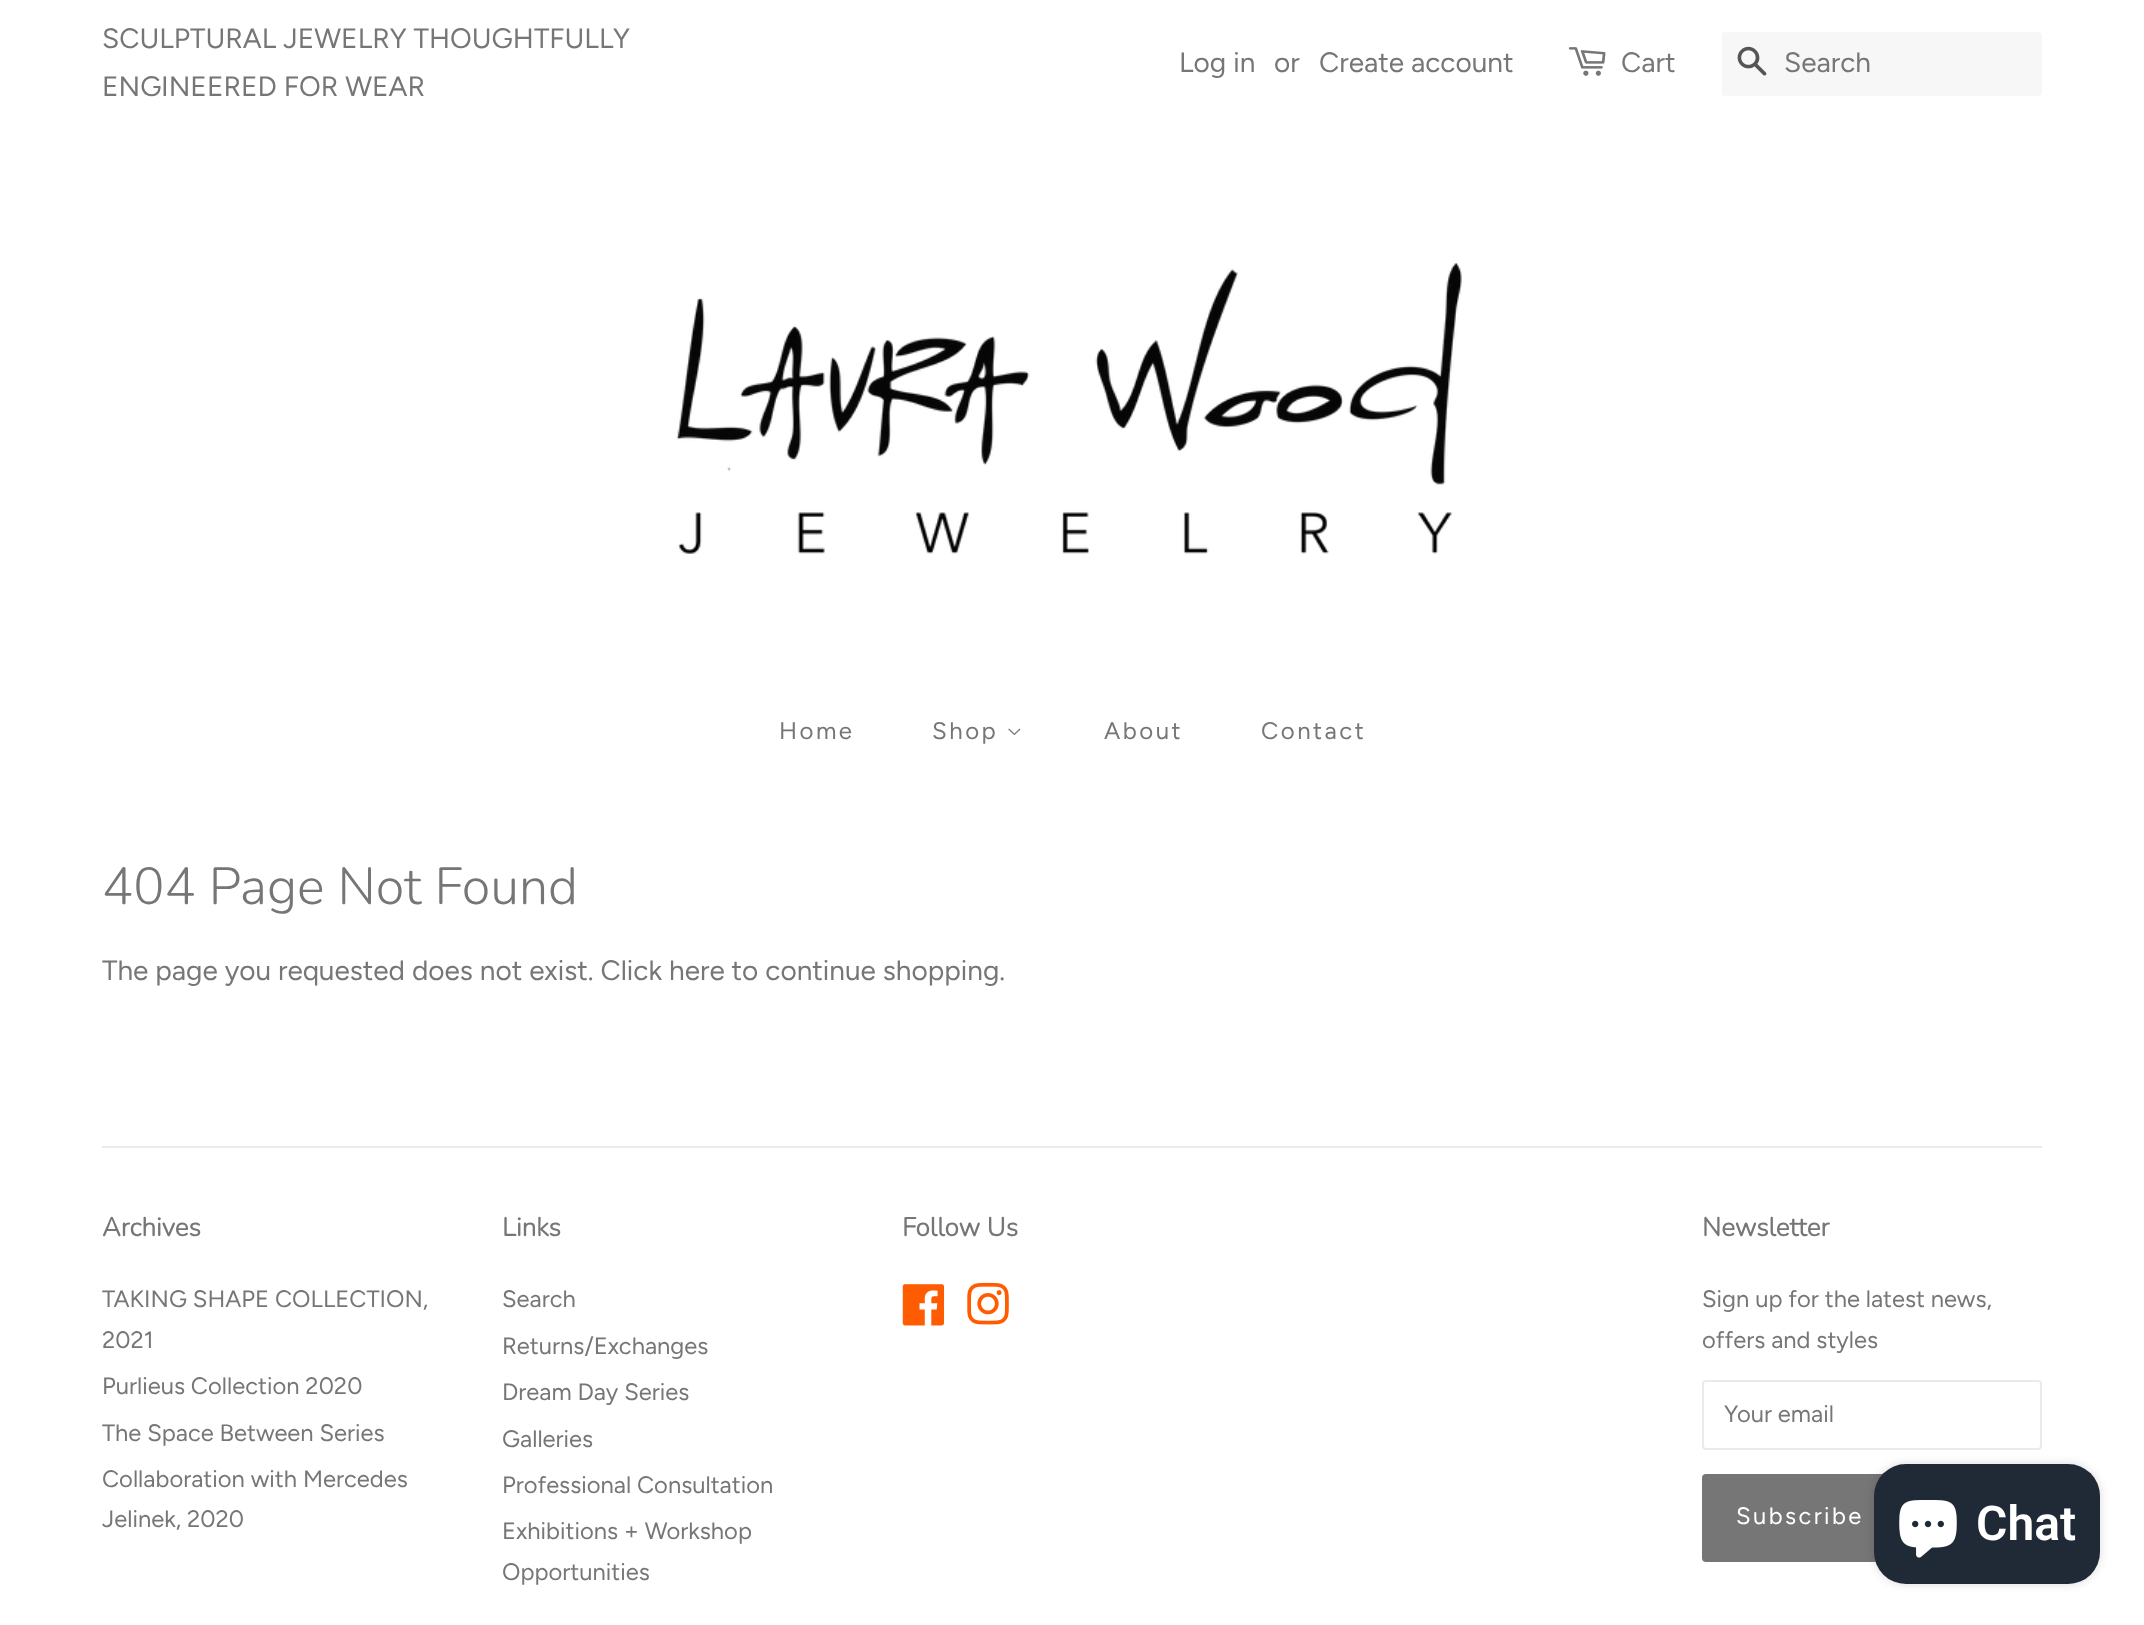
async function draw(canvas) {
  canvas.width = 2144
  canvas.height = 1625
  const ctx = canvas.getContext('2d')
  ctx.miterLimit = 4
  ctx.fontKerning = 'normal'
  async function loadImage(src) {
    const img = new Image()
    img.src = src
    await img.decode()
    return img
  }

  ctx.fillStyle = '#fff'
  ctx.fillRect(0, 0, 2144, 1625)
  ctx.font = '28px Figtree'
  ctx.fillStyle = '#767676'
  ctx.fillText('SCULPTURAL JEWELRY THOUGHTFULLY', 102, 48)
  ctx.fillText('ENGINEERED FOR WEAR', 102, 96)
  ctx.fillText('Log in', 1179, 72)
  ctx.fillText('or', 1274, 72)
  ctx.fillText('Create account', 1319, 72)
  ctx.drawImage(await loadImage('image0.png'), 1568, 47, 38, 29)
  ctx.fillText('Cart', 1621, 72)
  ctx.fillStyle = '#f7f7f7'
  ctx.beginPath()
  ctx.roundRect(1722, 32, 320, 64, 4)
  ctx.fill()
  ctx.drawImage(await loadImage('image1.png'), 1737, 46, 30, 30)
  ctx.fillStyle = '#767676'
  ctx.fillText('Search', 1784, 72)
  ctx.drawImage(await loadImage('image2.png'), 676, 262, 786, 292)
  ctx.letterSpacing = '2.5px'
  ctx.font = '24px Figtree'
  ctx.fillText('Home', 779, 739)
  ctx.fillText('Shop', 932, 739)
  ctx.drawImage(await loadImage('image3.png'), 1008, 728, 13, 8)
  ctx.fillText('About', 1104, 739)
  ctx.fillText('Contact', 1261, 739)
  ctx.letterSpacing = '0px'
  ctx.font = '300 52px Nunito'
  ctx.fillText('404 Page Not Found', 102, 904)
  ctx.font = '28px Figtree'
  ctx.fillText('The page you requested does not exist. Click here to continue shopping.', 102, 980)
  ctx.fillStyle = '#ebebeb'
  ctx.fillRect(102, 1146, 1940, 2)
  ctx.font = 'bold 26px Nunito'
  ctx.fillStyle = '#767676'
  ctx.fillText('Archives', 102, 1236)
  ctx.font = '23.75px Figtree'
  ctx.fillText('TAKING SHAPE COLLECTION,', 102, 1307)
  ctx.fillText('2021', 102, 1348)
  ctx.fillText('Purlieus Collection 2020', 102, 1394)
  ctx.fillText('The Space Between Series', 102, 1441)
  ctx.fillText('Collaboration with Mercedes', 102, 1487)
  ctx.fillText('Jelinek, 2020', 102, 1527)
  ctx.font = 'bold 26px Nunito'
  ctx.fillText('Links', 502, 1236)
  ctx.font = '23.75px Figtree'
  ctx.fillText('Search', 502, 1307)
  ctx.fillText('Returns/Exchanges', 502, 1354)
  ctx.fillText('Dream Day Series', 502, 1400)
  ctx.fillText('Galleries', 502, 1447)
  ctx.fillText('Professional Consultation', 502, 1493)
  ctx.fillText('Exhibitions + Workshop', 502, 1539)
  ctx.fillText('Opportunities', 502, 1580)
  ctx.font = 'bold 26px Nunito'
  ctx.fillText('Follow Us', 902, 1236)
  ctx.drawImage(await loadImage('image4.png'), 902, 1284, 43, 42)
  ctx.drawImage(await loadImage('image5.png'), 967, 1282, 42, 43)
  ctx.fillText('Newsletter', 1702, 1236)
  ctx.font = '23.75px Figtree'
  ctx.fillText('Sign up for the latest news,', 1702, 1307)
  ctx.fillText('offers and styles', 1702, 1348)
  ctx.beginPath()
  ctx.roundRect(1703, 1381, 338, 68, 3)
  ctx.strokeStyle = '#eaeaea'
  ctx.lineWidth = 2
  ctx.stroke()
  ctx.fillText('Your email', 1724, 1422)
  ctx.beginPath()
  ctx.roundRect(1702, 1474, 196, 88, 4)
  ctx.fill()
  ctx.letterSpacing = '2.4px'
  ctx.fillStyle = '#fff'
  ctx.fillText('Subscribe', 1736, 1524)
  ctx.fillStyle = '#00000026'
  ctx.filter = 'blur(5px)'
  ctx.beginPath()
  ctx.roundRect(1874, 1464, 226, 120, 32)
  ctx.fill()
  ctx.filter = 'none'
  ctx.fillStyle = '#202a36'
  ctx.beginPath()
  ctx.roundRect(1874, 1464, 226, 120, 32)
  ctx.fill()
  ctx.drawImage(await loadImage('image6.png'), 1899, 1500, 58, 58)
  ctx.letterSpacing = '0px'
  ctx.font = '600 48px Roboto'
  ctx.fillStyle = '#fff'
  ctx.fillText('Chat', 1976, 1540)
}

draw(document.querySelector('canvas'))
